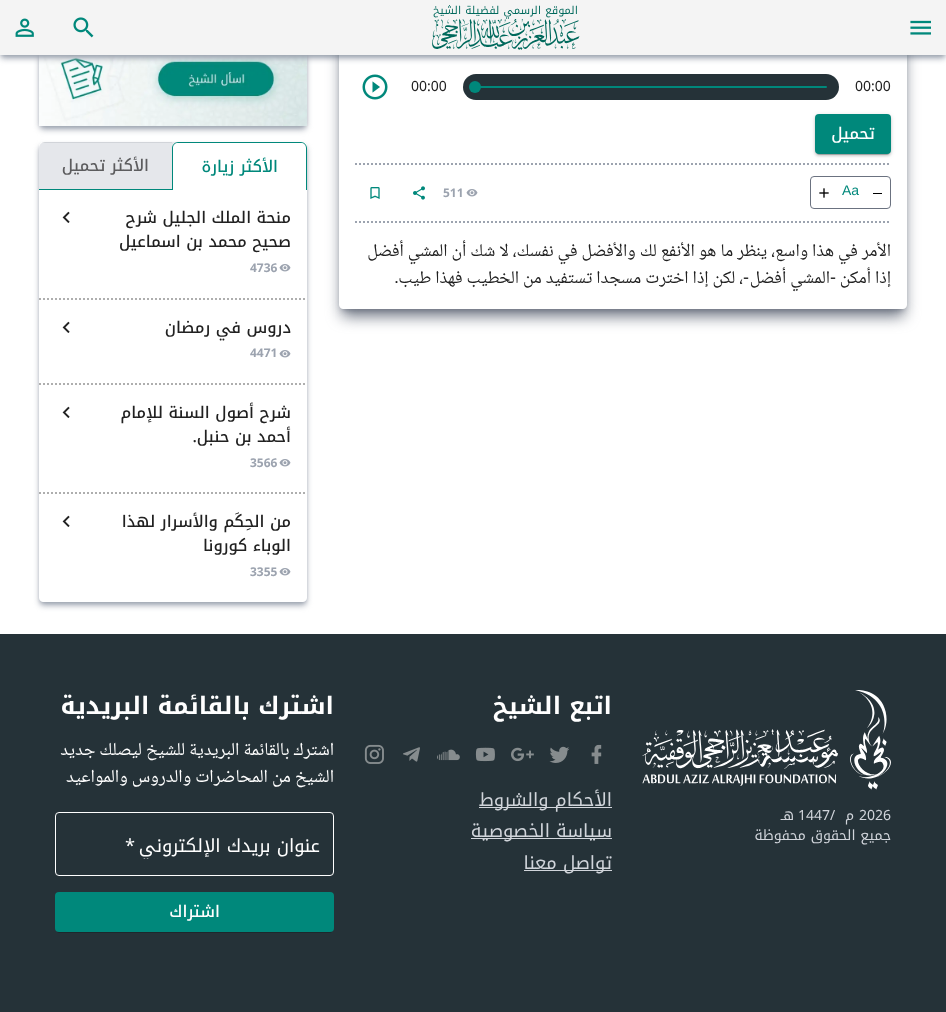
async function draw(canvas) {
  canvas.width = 946
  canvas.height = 1012
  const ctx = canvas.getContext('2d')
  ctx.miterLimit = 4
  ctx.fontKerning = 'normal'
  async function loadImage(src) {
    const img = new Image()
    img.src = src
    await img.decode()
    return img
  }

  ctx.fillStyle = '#fff'
  ctx.fillRect(0, 0, 946, 1012)
  ctx.fillStyle = '#9ca3af'
  ctx.filter = 'blur(2px)'
  ctx.beginPath()
  ctx.roundRect(41, 34, 264, 92, 2)
  ctx.fill()
  ctx.filter = 'none'
  ctx.filter = 'blur(3px)'
  ctx.beginPath()
  ctx.roundRect(40, 35, 266, 94, 3)
  ctx.fill()
  ctx.filter = 'none'
  ctx.drawImage(await loadImage('image9.png'), 39, 55, 268, 71)
  ctx.filter = 'blur(2px)'
  ctx.beginPath()
  ctx.rect(2, 4, 942, 51)
  ctx.fill()
  ctx.filter = 'none'
  ctx.filter = 'blur(3px)'
  ctx.beginPath()
  ctx.rect(1, 5, 944, 53)
  ctx.fill()
  ctx.filter = 'none'
  ctx.save()
  ctx.beginPath()
  ctx.moveTo(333, 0)
  ctx.lineTo(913, 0)
  ctx.lineTo(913, 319)
  ctx.lineTo(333, 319)
  ctx.closePath()
  ctx.moveTo(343, -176)
  ctx.lineTo(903, -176)
  ctx.bezierCurveTo(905, -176, 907, -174, 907, -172)
  ctx.lineTo(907, 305)
  ctx.bezierCurveTo(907, 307, 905, 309, 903, 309)
  ctx.lineTo(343, 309)
  ctx.bezierCurveTo(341, 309, 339, 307, 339, 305)
  ctx.lineTo(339, -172)
  ctx.bezierCurveTo(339, -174, 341, -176, 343, -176)
  ctx.closePath()
  ctx.clip('evenodd')
  ctx.fillStyle = '#6b7280'
  ctx.filter = 'blur(3px)'
  ctx.beginPath()
  ctx.rect(343, -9, 560, 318)
  ctx.fill()
  ctx.filter = 'none'
  ctx.restore()
  ctx.save()
  ctx.beginPath()
  ctx.moveTo(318, 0)
  ctx.lineTo(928, 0)
  ctx.lineTo(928, 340)
  ctx.lineTo(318, 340)
  ctx.closePath()
  ctx.moveTo(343, -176)
  ctx.lineTo(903, -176)
  ctx.bezierCurveTo(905, -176, 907, -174, 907, -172)
  ctx.lineTo(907, 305)
  ctx.bezierCurveTo(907, 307, 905, 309, 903, 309)
  ctx.lineTo(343, 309)
  ctx.bezierCurveTo(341, 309, 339, 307, 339, 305)
  ctx.lineTo(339, -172)
  ctx.bezierCurveTo(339, -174, 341, -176, 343, -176)
  ctx.closePath()
  ctx.clip('evenodd')
  ctx.fillStyle = '#6b7280'
  ctx.filter = 'blur(7.5px)'
  ctx.beginPath()
  ctx.roundRect(342, -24, 562, 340, 1)
  ctx.fill()
  ctx.filter = 'none'
  ctx.restore()
  ctx.fillStyle = '#f4f4f4'
  ctx.fillRect(0, 0, 946, 55)
  ctx.drawImage(await loadImage('image0.png'), 910, 20, 21, 15)
  ctx.drawImage(await loadImage('image1.png'), 432, 5, 148, 45)
  ctx.drawImage(await loadImage('image2.png'), 73, 17, 21, 21)
  ctx.drawImage(await loadImage('image3.png'), 15, 18, 19, 19)
  ctx.font = '14px Noto Kufi Arabic'
  ctx.fillStyle = '#212121'
  ctx.fillText('00:00', 855, 91)
  ctx.fillStyle = '#253238'
  ctx.beginPath()
  ctx.roundRect(463, 74, 376, 26, 13)
  ctx.fill()
  ctx.fillStyle = '#00887b'
  ctx.beginPath()
  ctx.roundRect(475, 86, 352, 2, 1)
  ctx.fill()
  ctx.beginPath()
  ctx.arc(475, 87, 6, 0, 2 * Math.PI)
  ctx.fill()
  ctx.fillStyle = '#212121'
  ctx.fillText('00:00', 411, 91)
  ctx.drawImage(await loadImage('image4.png'), 362, 74, 26, 26)
  ctx.beginPath()
  ctx.moveTo(355, 164)
  ctx.lineTo(891, 164)
  ctx.strokeStyle = '#9ca3af'
  ctx.lineWidth = 2
  ctx.setLineDash([2, 2])
  ctx.stroke()
  ctx.fillStyle = '#0000001f'
  ctx.filter = 'blur(2.5px)'
  ctx.beginPath()
  ctx.roundRect(815, 115, 76, 40, 4)
  ctx.fill()
  ctx.filter = 'none'
  ctx.fillStyle = '#00000024'
  ctx.filter = 'blur(1px)'
  ctx.beginPath()
  ctx.roundRect(815, 116, 76, 40, 4)
  ctx.fill()
  ctx.filter = 'none'
  ctx.fillStyle = '#00000033'
  ctx.filter = 'blur(0.5px)'
  ctx.beginPath()
  ctx.roundRect(817, 119, 72, 36, 2)
  ctx.fill()
  ctx.filter = 'none'
  ctx.fillStyle = '#00887b'
  ctx.beginPath()
  ctx.roundRect(815, 114, 76, 40, 4)
  ctx.fill()
  ctx.direction = 'rtl'
  ctx.font = '500 16px Noto Kufi Arabic'
  ctx.fillStyle = '#fff'
  ctx.fillText('تحميل', 875, 139)
  ctx.beginPath()
  ctx.moveTo(355, 222)
  ctx.lineTo(891, 222)
  ctx.stroke()
  ctx.beginPath()
  ctx.roundRect(810.5, 176.5, 80, 32, 3.5)
  ctx.strokeStyle = '#6b7280'
  ctx.lineWidth = 1
  ctx.setLineDash([])
  ctx.stroke()
  ctx.fillStyle = '#000'
  ctx.fillRect(873, 193, 9, 1)
  ctx.direction = 'ltr'
  ctx.font = '14px Liberation Sans'
  ctx.fillStyle = '#00887b'
  ctx.fillText('Aa', 842, 195)
  ctx.drawImage(await loadImage('image5.png'), 819, 188, 10, 10)
  ctx.drawImage(await loadImage('image6.png'), 466, 189, 12, 8)
  ctx.font = 'bold 12px Noto Kufi Arabic'
  ctx.fillStyle = '#9ca3af'
  ctx.fillText('511', 443, 197)
  ctx.drawImage(await loadImage('image7.png'), 413, 186, 12, 14)
  ctx.drawImage(await loadImage('image8.png'), 370, 187, 10, 12)
  ctx.direction = 'rtl'
  ctx.font = '18px Noto Naskh Arabic'
  ctx.fillStyle = '#212121'
  ctx.fillText('الأمر في هذا واسع، ينظر ما هو الأنفع لك والأفضل في نفسك، لا شك أن المشي أفضل', 891, 256)
  ctx.fillText('إذا أمكن', 891, 283)
  ctx.font = '18px Liberation Sans'
  ctx.fillText('-', 836, 283)
  ctx.font = '18px Noto Naskh Arabic'
  ctx.fillText('المشي أفضل', 830, 283)
  ctx.font = '18px Liberation Sans'
  ctx.fillText('-', 749, 283)
  ctx.font = '18px Noto Naskh Arabic'
  ctx.fillText('، لكن إذا اخترت مسجدا تستفيد من الخطيب فهذا طيب', 743, 283)
  ctx.font = '18px Liberation Sans'
  ctx.fillText('.', 399, 283)
  ctx.save()
  ctx.beginPath()
  ctx.moveTo(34, 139)
  ctx.lineTo(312, 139)
  ctx.lineTo(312, 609)
  ctx.lineTo(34, 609)
  ctx.closePath()
  ctx.moveTo(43, 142)
  ctx.lineTo(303, 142)
  ctx.bezierCurveTo(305, 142, 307, 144, 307, 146)
  ctx.lineTo(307, 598)
  ctx.bezierCurveTo(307, 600, 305, 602, 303, 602)
  ctx.lineTo(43, 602)
  ctx.bezierCurveTo(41, 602, 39, 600, 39, 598)
  ctx.lineTo(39, 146)
  ctx.bezierCurveTo(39, 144, 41, 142, 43, 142)
  ctx.closePath()
  ctx.clip('evenodd')
  ctx.fillStyle = '#9ca3af'
  ctx.filter = 'blur(2px)'
  ctx.beginPath()
  ctx.roundRect(41, 146, 264, 456, 2)
  ctx.fill()
  ctx.filter = 'none'
  ctx.restore()
  ctx.save()
  ctx.beginPath()
  ctx.moveTo(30, 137)
  ctx.lineTo(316, 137)
  ctx.lineTo(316, 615)
  ctx.lineTo(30, 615)
  ctx.closePath()
  ctx.moveTo(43, 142)
  ctx.lineTo(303, 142)
  ctx.bezierCurveTo(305, 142, 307, 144, 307, 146)
  ctx.lineTo(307, 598)
  ctx.bezierCurveTo(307, 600, 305, 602, 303, 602)
  ctx.lineTo(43, 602)
  ctx.bezierCurveTo(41, 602, 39, 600, 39, 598)
  ctx.lineTo(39, 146)
  ctx.bezierCurveTo(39, 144, 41, 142, 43, 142)
  ctx.closePath()
  ctx.clip('evenodd')
  ctx.fillStyle = '#9ca3af'
  ctx.filter = 'blur(3px)'
  ctx.beginPath()
  ctx.roundRect(40, 147, 266, 458, 3)
  ctx.fill()
  ctx.filter = 'none'
  ctx.restore()
  ctx.fillStyle = '#e5e7eb'
  ctx.beginPath()
  ctx.roundRect(39, 142, 268, 48, [6, 6, 0, 0])
  ctx.fill()
  ctx.fillStyle = '#fff'
  ctx.beginPath()
  ctx.roundRect(172, 142, 135, 48, [6, 6, 0, 0])
  ctx.fill()
  ctx.fillStyle = '#00887b'
  ctx.beginPath()
  ctx.moveTo(178, 142)
  ctx.lineTo(301, 142)
  ctx.bezierCurveTo(304, 142, 307, 145, 307, 148)
  ctx.lineTo(307, 190)
  ctx.lineTo(172, 190)
  ctx.lineTo(172, 148)
  ctx.bezierCurveTo(172, 145, 175, 142, 178, 142)
  ctx.closePath()
  ctx.moveTo(178, 143)
  ctx.lineTo(301, 143)
  ctx.bezierCurveTo(304, 143, 306, 145, 306, 148)
  ctx.lineTo(306, 190)
  ctx.lineTo(173, 190)
  ctx.lineTo(173, 148)
  ctx.bezierCurveTo(173, 145, 175, 143, 178, 143)
  ctx.closePath()
  ctx.fill('evenodd')
  ctx.font = '500 16px Noto Kufi Arabic'
  ctx.fillText('الأكثر زيارة', 278, 172)
  ctx.save()
  ctx.beginPath()
  ctx.roundRect(39, 142, 268, 48, [6, 6, 0, 0])
  ctx.clip()
  ctx.fillStyle = '#2532381a'
  ctx.fillRect(39, 142, 133, 1)
  ctx.restore()
  ctx.fillRect(39, 189, 133, 1)
  ctx.fillStyle = '#5c5c5e'
  ctx.fillText('الأكثر تحميل', 149, 171)
  ctx.beginPath()
  ctx.moveTo(39, 299)
  ctx.lineTo(307, 299)
  ctx.strokeStyle = '#aeaeae'
  ctx.lineWidth = 2
  ctx.setLineDash([2, 2])
  ctx.stroke()
  ctx.fillStyle = '#212121'
  ctx.fillText('منحة الملك الجليل شرح', 291, 223)
  ctx.fillText('صحيح محمد بن اسماعيل', 291, 247)
  ctx.drawImage(await loadImage('image6.png'), 279, 264, 12, 8)
  ctx.direction = 'ltr'
  ctx.font = 'bold 12px Noto Kufi Arabic'
  ctx.fillStyle = '#9ca3af'
  ctx.fillText('4736', 250, 272)
  ctx.drawImage(await loadImage('image10.png'), 62, 211, 8, 12)
  ctx.beginPath()
  ctx.moveTo(39, 384)
  ctx.lineTo(307, 384)
  ctx.stroke()
  ctx.direction = 'rtl'
  ctx.font = '500 16px Noto Kufi Arabic'
  ctx.fillStyle = '#212121'
  ctx.fillText('دروس في رمضان', 291, 333)
  ctx.drawImage(await loadImage('image6.png'), 279, 350, 12, 8)
  ctx.direction = 'ltr'
  ctx.font = 'bold 12px Noto Kufi Arabic'
  ctx.fillStyle = '#9ca3af'
  ctx.fillText('4471', 250, 357)
  ctx.drawImage(await loadImage('image10.png'), 62, 321, 8, 12)
  ctx.beginPath()
  ctx.moveTo(39, 493)
  ctx.lineTo(307, 493)
  ctx.stroke()
  ctx.direction = 'rtl'
  ctx.font = '500 16px Noto Kufi Arabic'
  ctx.fillStyle = '#212121'
  ctx.fillText('شرح أصول السنة للإمام', 291, 418)
  ctx.fillText('أحمد بن حنبل.', 291, 442)
  ctx.drawImage(await loadImage('image6.png'), 279, 459, 12, 8)
  ctx.direction = 'ltr'
  ctx.font = 'bold 12px Noto Kufi Arabic'
  ctx.fillStyle = '#9ca3af'
  ctx.fillText('3566', 250, 467)
  ctx.drawImage(await loadImage('image10.png'), 62, 406, 8, 12)
  ctx.direction = 'rtl'
  ctx.font = '500 16px Noto Kufi Arabic'
  ctx.fillStyle = '#212121'
  ctx.fillText('من الحِكَم والأسرار لهذا', 291, 527)
  ctx.fillText('الوباء كورونا', 291, 551)
  ctx.drawImage(await loadImage('image6.png'), 279, 568, 12, 8)
  ctx.direction = 'ltr'
  ctx.font = 'bold 12px Noto Kufi Arabic'
  ctx.fillStyle = '#9ca3af'
  ctx.fillText('3355', 250, 576)
  ctx.drawImage(await loadImage('image10.png'), 62, 515, 8, 12)
  ctx.fillStyle = '#253238'
  ctx.fillRect(0, 634, 946, 378)
  ctx.drawImage(await loadImage('image11.png'), 642, 690, 249, 100)
  ctx.font = '14px Noto Kufi Arabic'
  ctx.fillStyle = '#d1d5db'
  ctx.fillText('2026', 859, 820)
  ctx.direction = 'rtl'
  ctx.fillText('م', 854, 820)
  ctx.direction = 'ltr'
  ctx.fillText('1447/', 798, 820)
  ctx.direction = 'rtl'
  ctx.fillText('هـ', 794, 820)
  ctx.fillText('جميع الحقوق محفوظة', 891, 840)
  ctx.font = 'bold 24px Noto Kufi Arabic'
  ctx.fillStyle = '#fff'
  ctx.fillText('اتبع الشيخ', 612, 714)
  ctx.drawImage(await loadImage('image12.png'), 591, 744, 11, 20)
  ctx.drawImage(await loadImage('image13.png'), 549, 746, 21, 17)
  ctx.drawImage(await loadImage('image14.png'), 511, 747, 23, 15)
  ctx.drawImage(await loadImage('image15.png'), 475, 747, 20, 15)
  ctx.drawImage(await loadImage('image16.png'), 437, 749, 23, 12)
  ctx.drawImage(await loadImage('image17.png'), 403, 747, 17, 15)
  ctx.drawImage(await loadImage('image18.png'), 364, 744, 20, 20)
  ctx.fillStyle = '#d1d5db'
  ctx.fillRect(479, 807, 133, 1)
  ctx.font = '18.25px Noto Kufi Arabic'
  ctx.fillText('الأحكام والشروط', 612, 806)
  ctx.fillRect(471, 838, 141, 1)
  ctx.fillText('سياسة الخصوصية', 612, 837)
  ctx.fillRect(524, 870, 88, 1)
  ctx.fillText('تواصل معنا', 612, 869)
  ctx.font = 'bold 24px Noto Kufi Arabic'
  ctx.fillStyle = '#fff'
  ctx.fillText('اشترك بالقائمة البريدية', 334, 714)
  ctx.font = '18.25px Noto Naskh Arabic'
  ctx.fillText('اشترك بالقائمة البريدية للشيخ ليصلك جديد', 334, 755)
  ctx.fillText('الشيخ من المحاضرات والدروس والمواعيد', 334, 782)
  ctx.beginPath()
  ctx.roundRect(55.5, 812.5, 278, 63, 3.5)
  ctx.strokeStyle = '#fff'
  ctx.lineWidth = 1
  ctx.setLineDash([])
  ctx.stroke()
  ctx.save()
  ctx.beginPath()
  ctx.rect(125, 833, 195, 26)
  ctx.clip()
  ctx.font = '18.25px Noto Kufi Arabic'
  ctx.fillText('عنوان بريدك الإلكتروني', 320, 852)
  ctx.restore()
  ctx.direction = 'ltr'
  ctx.font = '18.25px Noto Kufi Arabic'
  ctx.fillText('*', 125, 852)
  ctx.fillStyle = '#00000033'
  ctx.filter = 'blur(0.5px)'
  ctx.beginPath()
  ctx.roundRect(57, 897, 275, 36, 2)
  ctx.fill()
  ctx.filter = 'none'
  ctx.fillStyle = '#00887b'
  ctx.beginPath()
  ctx.roundRect(55, 892, 279, 40, 4)
  ctx.fill()
  ctx.direction = 'rtl'
  ctx.font = '500 16px Noto Kufi Arabic'
  ctx.fillStyle = '#fff'
  ctx.fillText('اشتراك', 220, 917)
}

draw(document.querySelector('canvas'))
